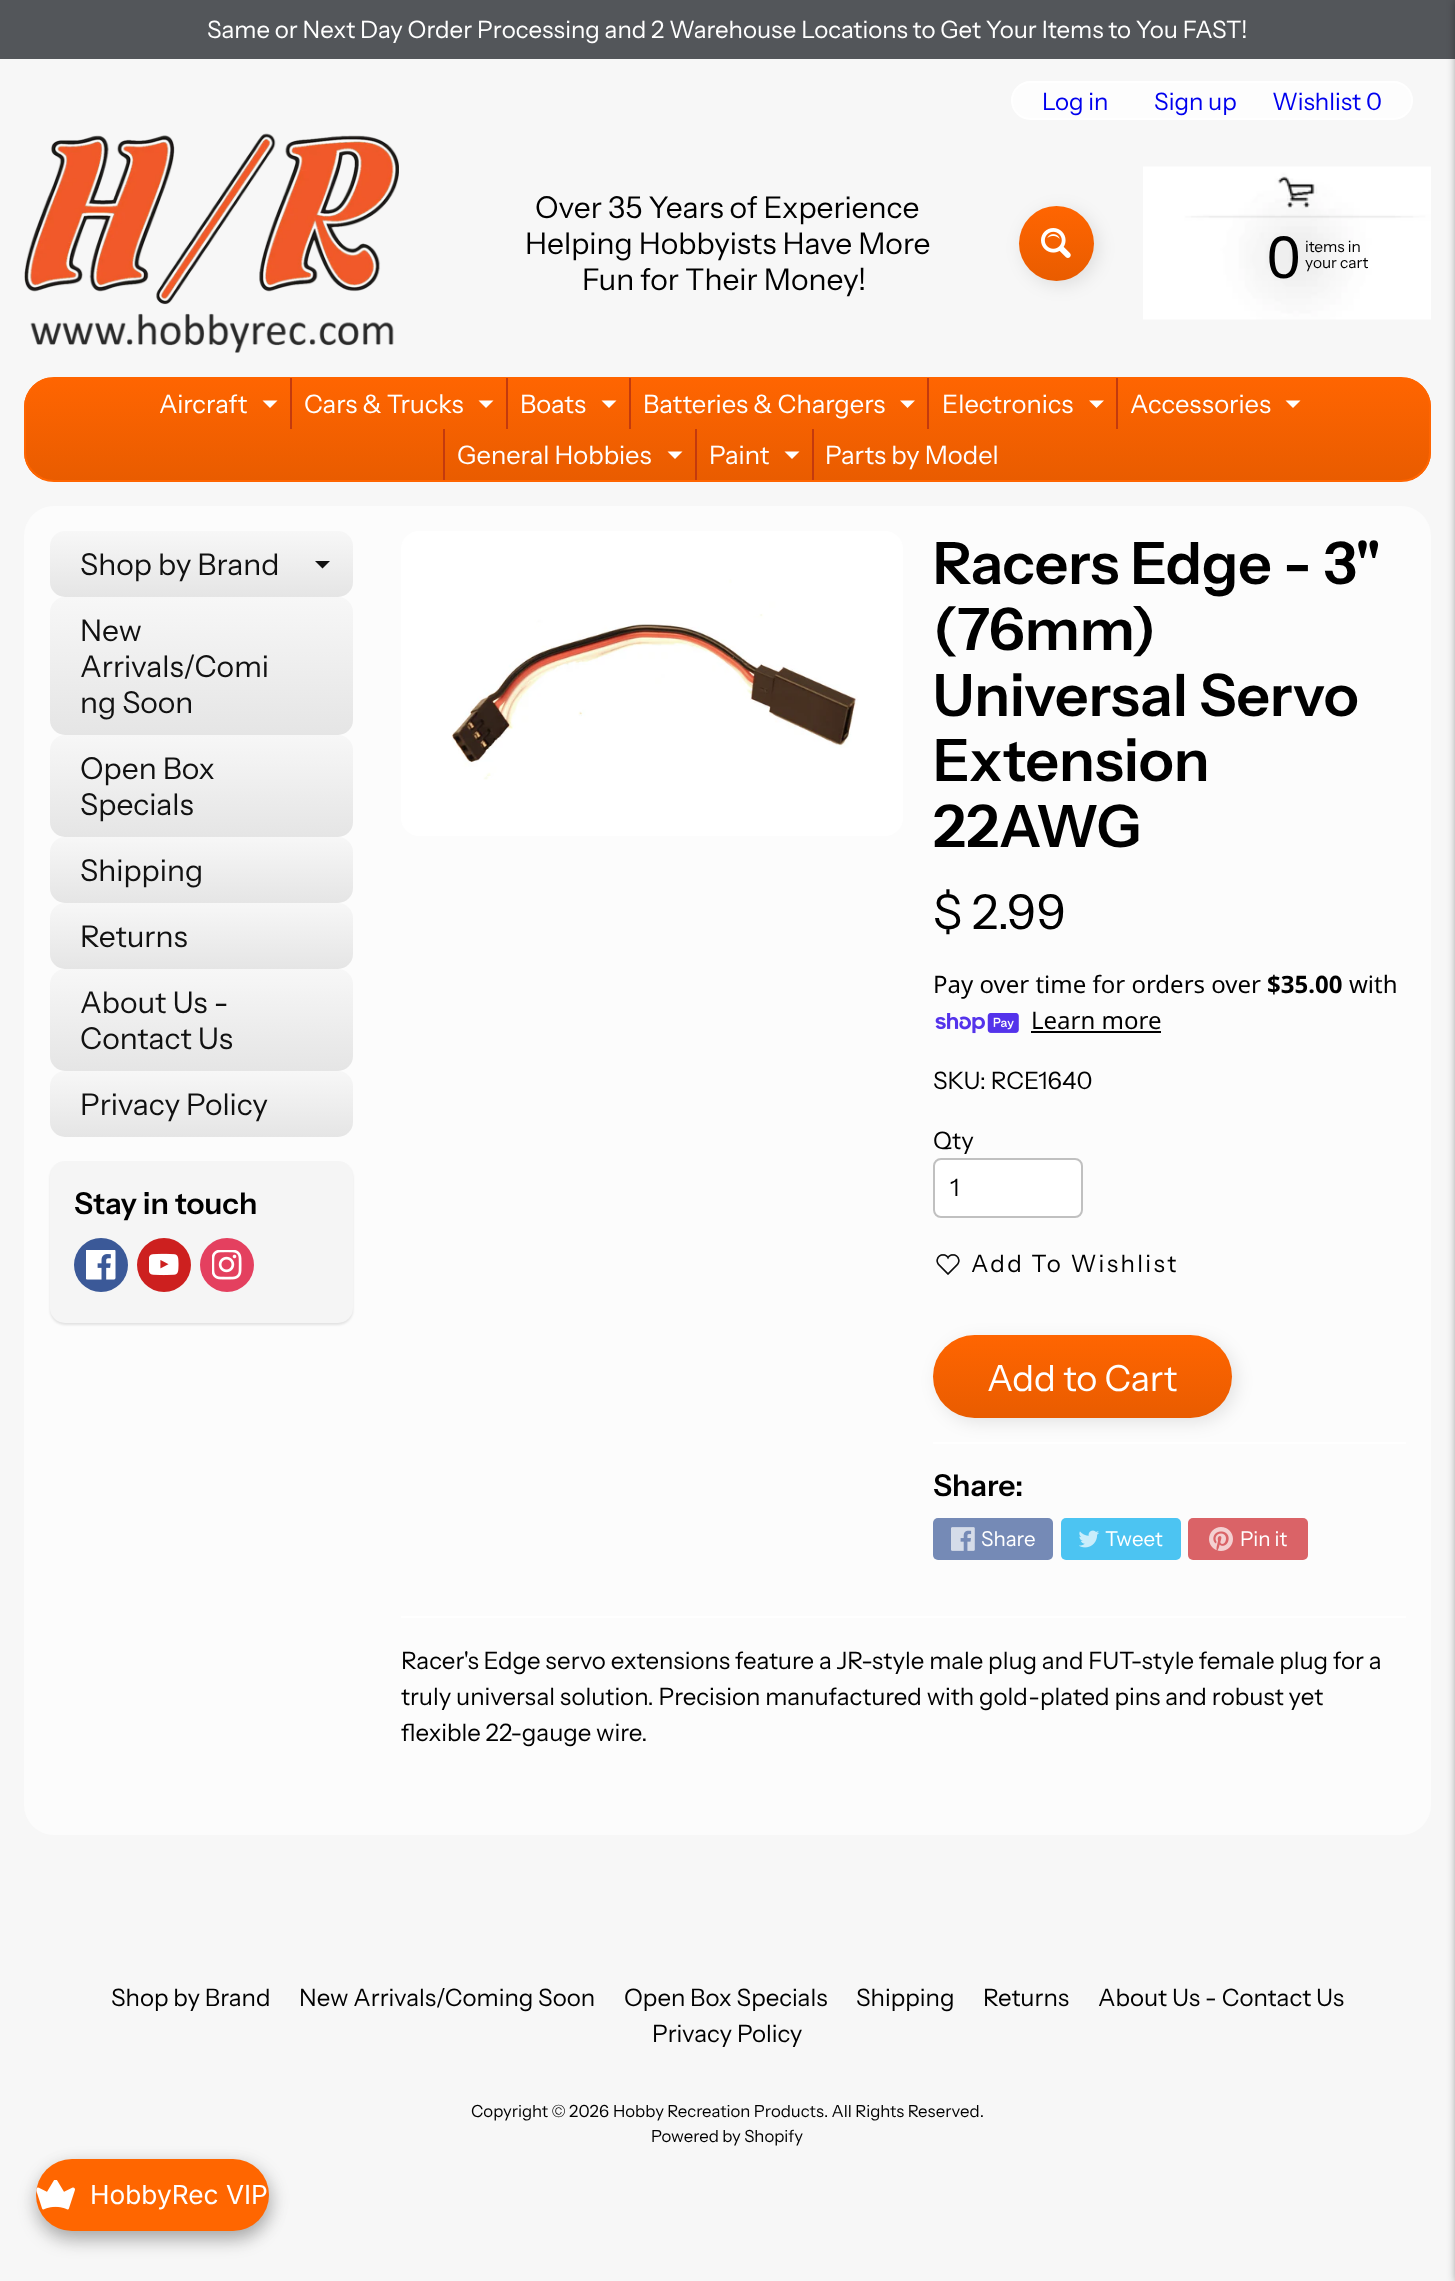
async function draw(canvas) {
  canvas.width = 1455
  canvas.height = 2281
  const ctx = canvas.getContext('2d')
  ctx.miterLimit = 4
  ctx.fontKerning = 'normal'
  async function loadImage(src) {
    const img = new Image()
    img.src = src
    await img.decode()
    return img
  }
  let gradient

  ctx.fillStyle = '#f7f7f7'
  ctx.fillRect(0, 0, 1455, 2281)
  ctx.fillStyle = '#53565a'
  ctx.fillRect(0, 0, 1455, 59)
  ctx.font = '24px Instrument Sans'
  ctx.fillStyle = '#fff'
  ctx.fillText('Same or Next Day Order Processing and 2 Warehouse Locations to Get Your Items to You FAST!', 207, 38)
  ctx.drawImage(await loadImage('image0.png'), 24, 133, 375, 220)
  ctx.font = '30px Instrument Sans'
  ctx.fillStyle = '#000'
  ctx.fillText('Over 35 Years of Experience', 535, 218)
  ctx.fillText('Helping Hobbyists Have More', 525, 254)
  ctx.fillText('Fun for Their Money!', 582, 290)
  ctx.fillStyle = '#fdfdfd'
  ctx.beginPath()
  ctx.roundRect(1012, 82, 400, 37, 18.5)
  ctx.fill()
  ctx.strokeStyle = '#fff'
  ctx.lineWidth = 2
  ctx.stroke()
  ctx.font = '24px Instrument Sans'
  ctx.fillStyle = '#00e'
  ctx.fillText('Log in', 1042, 110)
  ctx.fillText('Sign up', 1154, 110)
  ctx.fillText('Wishlist 0', 1272, 110)
  ctx.fillStyle = '#0000001a'
  ctx.filter = 'blur(9px)'
  ctx.beginPath()
  ctx.roundRect(1023, 210, 75, 75, 37.5)
  ctx.fill()
  ctx.filter = 'none'
  gradient = ctx.createLinearGradient(1056, 206, 1056, 281)
  gradient.addColorStop(0, '#ff6501')
  gradient.addColorStop(1, '#e95c00')
  ctx.fillStyle = gradient
  ctx.beginPath()
  ctx.arc(1056.5, 243.5, 37.5, 0, 2 * Math.PI)
  ctx.fill()
  ctx.drawImage(await loadImage('image1.png'), 1041, 228, 30, 30)
  ctx.drawImage(await loadImage('image2.png'), 1143, 166, 288, 154)
  ctx.font = '60px Liberation Sans'
  ctx.fillStyle = '#000'
  ctx.fillText('0', 1267, 278)
  ctx.font = '15.5px Instrument Sans'
  ctx.fillText('items in', 1305, 252)
  ctx.fillText('your cart', 1305, 268)
  ctx.save()
  ctx.beginPath()
  ctx.roundRect(24, 377, 1407, 105, 30)
  ctx.clip()
  gradient = ctx.createLinearGradient(728, 378, 728, 480)
  gradient.addColorStop(0, '#ff6501')
  gradient.addColorStop(1, '#e95c00')
  ctx.fillStyle = gradient
  ctx.fillRect(24, 378, 1407, 102)
  ctx.restore()
  ctx.beginPath()
  ctx.roundRect(25, 378, 1405, 103, 29)
  ctx.strokeStyle = '#ff6501'
  ctx.stroke()
  ctx.font = '25.5px Instrument Sans'
  ctx.fillStyle = '#fff'
  ctx.fillText('Aircraft', 159, 413)
  ctx.beginPath()
  ctx.moveTo(262.5, 400.5)
  ctx.lineTo(277.5, 400.5)
  ctx.lineTo(270, 408)
  ctx.closePath()
  ctx.fill()
  ctx.fillStyle = '#c33a0e'
  ctx.fillRect(290, 378, 2, 51)
  ctx.fillStyle = '#fff'
  ctx.fillText('Cars & Trucks', 304, 413)
  ctx.beginPath()
  ctx.moveTo(478.5, 400.5)
  ctx.lineTo(493.5, 400.5)
  ctx.lineTo(486, 408)
  ctx.closePath()
  ctx.fill()
  ctx.fillStyle = '#c33a0e'
  ctx.fillRect(506, 378, 2, 51)
  ctx.fillStyle = '#fff'
  ctx.fillText('Boats', 520, 413)
  ctx.beginPath()
  ctx.moveTo(601.5, 400.5)
  ctx.lineTo(616.5, 400.5)
  ctx.lineTo(609, 408)
  ctx.closePath()
  ctx.fill()
  ctx.fillStyle = '#c33a0e'
  ctx.fillRect(629, 378, 2, 51)
  ctx.fillStyle = '#fff'
  ctx.fillText('Batteries & Chargers', 643, 413)
  ctx.beginPath()
  ctx.moveTo(900, 400.5)
  ctx.lineTo(915, 400.5)
  ctx.lineTo(907.5, 408)
  ctx.closePath()
  ctx.fill()
  ctx.fillStyle = '#c33a0e'
  ctx.fillRect(927, 378, 2, 51)
  ctx.fillStyle = '#fff'
  ctx.fillText('Electronics', 942, 413)
  ctx.beginPath()
  ctx.moveTo(1089, 400.5)
  ctx.lineTo(1104, 400.5)
  ctx.lineTo(1096.5, 408)
  ctx.closePath()
  ctx.fill()
  ctx.fillStyle = '#c33a0e'
  ctx.fillRect(1116, 378, 2, 51)
  ctx.fillStyle = '#fff'
  ctx.fillText('Accessories', 1130, 413)
  ctx.beginPath()
  ctx.moveTo(1285.5, 400.5)
  ctx.lineTo(1300.5, 400.5)
  ctx.lineTo(1293, 408)
  ctx.closePath()
  ctx.fill()
  ctx.fillStyle = '#c33a0e'
  ctx.fillRect(443, 429, 2, 51)
  ctx.fillStyle = '#fff'
  ctx.fillText('General Hobbies', 457, 464)
  ctx.beginPath()
  ctx.moveTo(667.5, 451.5)
  ctx.lineTo(682.5, 451.5)
  ctx.lineTo(675, 459)
  ctx.closePath()
  ctx.fill()
  ctx.fillStyle = '#c33a0e'
  ctx.fillRect(695, 429, 2, 51)
  ctx.fillStyle = '#fff'
  ctx.fillText('Paint', 709, 464)
  ctx.beginPath()
  ctx.moveTo(784.5, 451.5)
  ctx.lineTo(799.5, 451.5)
  ctx.lineTo(792, 459)
  ctx.closePath()
  ctx.fill()
  ctx.fillStyle = '#c33a0e'
  ctx.fillRect(812, 429, 2, 51)
  ctx.fillStyle = '#fff'
  ctx.fillText('Parts by Model', 825, 464)
  ctx.fillStyle = '#fcfcfc'
  ctx.beginPath()
  ctx.roundRect(24, 506, 1407, 1329, 30)
  ctx.fill()
  gradient = ctx.createLinearGradient(201, 531, 201, 597)
  gradient.addColorStop(0, '#f7f7f7')
  gradient.addColorStop(1, '#e5e5e5')
  ctx.fillStyle = gradient
  ctx.beginPath()
  ctx.roundRect(50, 531, 303, 66, 15)
  ctx.fill()
  ctx.font = '30px Instrument Sans'
  ctx.fillStyle = '#111'
  ctx.fillText('Shop by Brand', 80, 575)
  ctx.beginPath()
  ctx.moveTo(315, 561)
  ctx.lineTo(330, 561)
  ctx.lineTo(322.5, 568.5)
  ctx.closePath()
  ctx.fill()
  gradient = ctx.createLinearGradient(201, 597, 201, 735)
  gradient.addColorStop(0, '#f7f7f7')
  gradient.addColorStop(1, '#e5e5e5')
  ctx.fillStyle = gradient
  ctx.beginPath()
  ctx.roundRect(50, 597, 303, 138, 15)
  ctx.fill()
  ctx.fillStyle = '#111'
  ctx.fillText('New', 80, 641)
  ctx.fillText('Arrivals/Comi', 80, 677)
  ctx.fillText('ng Soon', 80, 713)
  gradient = ctx.createLinearGradient(201, 735, 201, 837)
  gradient.addColorStop(0, '#f7f7f7')
  gradient.addColorStop(1, '#e5e5e5')
  ctx.fillStyle = gradient
  ctx.beginPath()
  ctx.roundRect(50, 735, 303, 102, 15)
  ctx.fill()
  ctx.fillStyle = '#111'
  ctx.fillText('Open Box', 80, 779)
  ctx.fillText('Specials', 80, 815)
  gradient = ctx.createLinearGradient(201, 837, 201, 903)
  gradient.addColorStop(0, '#f7f7f7')
  gradient.addColorStop(1, '#e5e5e5')
  ctx.fillStyle = gradient
  ctx.beginPath()
  ctx.roundRect(50, 837, 303, 66, 15)
  ctx.fill()
  ctx.fillStyle = '#111'
  ctx.fillText('Shipping', 80, 881)
  gradient = ctx.createLinearGradient(201, 903, 201, 969)
  gradient.addColorStop(0, '#f7f7f7')
  gradient.addColorStop(1, '#e5e5e5')
  ctx.fillStyle = gradient
  ctx.beginPath()
  ctx.roundRect(50, 903, 303, 66, 15)
  ctx.fill()
  ctx.fillStyle = '#111'
  ctx.fillText('Returns', 80, 947)
  gradient = ctx.createLinearGradient(201, 969, 201, 1071)
  gradient.addColorStop(0, '#f7f7f7')
  gradient.addColorStop(1, '#e5e5e5')
  ctx.fillStyle = gradient
  ctx.beginPath()
  ctx.roundRect(50, 969, 303, 102, 15)
  ctx.fill()
  ctx.fillStyle = '#111'
  ctx.fillText('About Us -', 80, 1013)
  ctx.fillText('Contact Us', 80, 1049)
  gradient = ctx.createLinearGradient(201, 1071, 201, 1137)
  gradient.addColorStop(0, '#f7f7f7')
  gradient.addColorStop(1, '#e5e5e5')
  ctx.fillStyle = gradient
  ctx.beginPath()
  ctx.roundRect(50, 1071, 303, 66, 15)
  ctx.fill()
  ctx.fillStyle = '#111'
  ctx.fillText('Privacy Policy', 80, 1115)
  ctx.fillStyle = '#0000001a'
  ctx.filter = 'blur(1px)'
  ctx.beginPath()
  ctx.roundRect(50, 1163, 303, 162, 15)
  ctx.fill()
  ctx.filter = 'none'
  ctx.fillStyle = '#f5f5f5'
  ctx.beginPath()
  ctx.roundRect(50, 1161, 303, 162, 15)
  ctx.fill()
  ctx.font = '600 30px Instrument Sans'
  ctx.fillStyle = '#000'
  ctx.fillText('Stay in touch', 74, 1214)
  ctx.fillStyle = '#3b5998'
  ctx.beginPath()
  ctx.arc(101, 1265, 27, 0, 2 * Math.PI)
  ctx.fill()
  ctx.drawImage(await loadImage('image3.png'), 86, 1250, 30, 30)
  ctx.fillStyle = '#cd201f'
  ctx.beginPath()
  ctx.arc(164, 1265, 27, 0, 2 * Math.PI)
  ctx.fill()
  ctx.drawImage(await loadImage('image4.png'), 149, 1253, 30, 23)
  ctx.fillStyle = '#e4405f'
  ctx.beginPath()
  ctx.arc(227, 1265, 27, 0, 2 * Math.PI)
  ctx.fill()
  ctx.drawImage(await loadImage('image5.png'), 212, 1250, 30, 30)
  ctx.fillStyle = '#fff'
  ctx.beginPath()
  ctx.roundRect(401, 531, 502, 305, 18)
  ctx.fill()
  ctx.drawImage(await loadImage('image6.png'), 451, 579, 407, 201)
  ctx.font = '600 58.5px Instrument Sans'
  ctx.fillStyle = '#000'
  ctx.fillText('Racers Edge - 3"', 933, 584)
  ctx.fillText('(76mm)', 933, 650)
  ctx.fillText('Universal Servo', 933, 716)
  ctx.fillText('Extension', 933, 781)
  ctx.fillText('22AWG', 933, 847)
  ctx.font = '48px Instrument Sans'
  ctx.fillText('$ 2.99', 933, 929)
  ctx.font = '24px Noto Sans'
  ctx.fillText('Pay over time for orders over', 933, 993)
  ctx.font = 'bold 24px Noto Sans'
  ctx.fillText('$35.00', 1267, 993)
  ctx.font = '24px Noto Sans'
  ctx.fillText('with', 1349, 993)
  ctx.drawImage(await loadImage('image7.png'), 935, 1013, 84, 21)
  ctx.fillText('Learn more', 1031, 1029)
  ctx.fillRect(1031, 1031, 130, 2)
  ctx.font = '24px Instrument Sans'
  ctx.fillText('SKU: RCE1640', 933, 1089)
  ctx.fillText('Qty', 933, 1149)
  ctx.fillStyle = '#fff'
  ctx.beginPath()
  ctx.roundRect(934, 1159, 148, 58, 7)
  ctx.fill()
  ctx.strokeStyle = '#c0c0c0'
  ctx.stroke()
  ctx.fillStyle = '#000'
  ctx.fillText('1', 950, 1196)
  ctx.drawImage(await loadImage('image8.png'), 936, 1254, 24, 21)
  ctx.letterSpacing = '2.4px'
  ctx.fillText('Add To Wishlist', 971, 1272)
  ctx.fillStyle = '#fff'
  ctx.fillRect(933, 1442, 473, 2)
  ctx.fillStyle = '#0000001a'
  ctx.filter = 'blur(9px)'
  ctx.beginPath()
  ctx.roundRect(938, 1340, 298, 82, 41)
  ctx.fill()
  ctx.filter = 'none'
  gradient = ctx.createLinearGradient(1082, 1335, 1082, 1418)
  gradient.addColorStop(0, '#ff6501')
  gradient.addColorStop(1, '#e95c00')
  ctx.fillStyle = gradient
  ctx.beginPath()
  ctx.roundRect(933, 1335, 299, 83, 41.5)
  ctx.fill()
  ctx.letterSpacing = '0px'
  ctx.font = '36px Instrument Sans'
  ctx.fillStyle = '#fff'
  ctx.fillText('Add to Cart', 987, 1391)
  ctx.font = '600 30px Instrument Sans'
  ctx.fillStyle = '#000'
  ctx.fillText('Share:', 933, 1496)
  ctx.fillStyle = '#758ab6'
  ctx.beginPath()
  ctx.roundRect(933, 1518, 120, 42, 5)
  ctx.fill()
  ctx.drawImage(await loadImage('image9.png'), 951, 1527, 24, 24)
  ctx.font = '20.5px Instrument Sans'
  ctx.fillStyle = '#fff'
  ctx.fillText('Share', 981, 1546)
  ctx.fillStyle = '#4cc4f2'
  ctx.beginPath()
  ctx.roundRect(1061, 1518, 120, 42, 5)
  ctx.fill()
  ctx.drawImage(await loadImage('image10.png'), 1079, 1530, 20, 18)
  ctx.fillStyle = '#fff'
  ctx.fillText('Tweet', 1105, 1546)
  ctx.fillStyle = '#da6367'
  ctx.beginPath()
  ctx.roundRect(1188, 1518, 120, 42, 5)
  ctx.fill()
  ctx.drawImage(await loadImage('image11.png'), 1209, 1527, 24, 24)
  ctx.fillStyle = '#fff'
  ctx.fillText('Pin it', 1240, 1546)
  ctx.fillRect(401, 1616, 1005, 2)
  ctx.font = '24px Instrument Sans'
  ctx.fillStyle = '#000'
  ctx.fillText('Racer\'s Edge servo extensions feature a JR-style male plug and FUT-style female plug for a', 401, 1669)
  ctx.fillText('truly universal solution. Precision manufactured with gold-plated pins and robust yet', 401, 1705)
  ctx.fillText('flexible 22-gauge wire.', 401, 1741)
  ctx.fillStyle = '#00000080'
  ctx.filter = 'blur(5px)'
  ctx.beginPath()
  ctx.rect(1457, 0, 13, 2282)
  ctx.fill()
  ctx.filter = 'none'
  ctx.fillStyle = '#000'
  ctx.fillText('Shop by Brand', 111, 2006)
  ctx.fillText('New Arrivals/Coming Soon', 299, 2006)
  ctx.fillText('Open Box Specials', 624, 2006)
  ctx.fillText('Shipping', 856, 2006)
  ctx.fillText('Returns', 983, 2006)
  ctx.fillText('About Us - Contact Us', 1098, 2006)
  ctx.fillText('Privacy Policy', 652, 2042)
  ctx.font = '16.75px Instrument Sans'
  ctx.fillText('Copyright © 2026', 471, 2117)
  ctx.fillText('Hobby Recreation Products', 613, 2117)
  ctx.fillText('. All Rights Reserved.', 824, 2117)
  ctx.fillText('Powered by Shopify', 651, 2142)
  ctx.fillStyle = '#0000001a'
  ctx.filter = 'blur(9px)'
  ctx.beginPath()
  ctx.roundRect(41, 2163, 232, 72, 36)
  ctx.fill()
  ctx.filter = 'none'
  ctx.fillStyle = '#00000040'
  ctx.filter = 'blur(9px)'
  ctx.beginPath()
  ctx.roundRect(36, 2168, 233, 72, 36)
  ctx.fill()
  ctx.filter = 'none'
  ctx.fillStyle = '#f60'
  ctx.beginPath()
  ctx.roundRect(36, 2159, 233, 72, 36)
  ctx.fill()
  ctx.drawImage(await loadImage('image12.png'), 36, 2180, 39, 30)
  ctx.font = '26.25px Inter'
  ctx.fillStyle = '#fff'
  ctx.fillText('HobbyRec VIP', 90, 2204)
}

draw(document.querySelector('canvas'))
